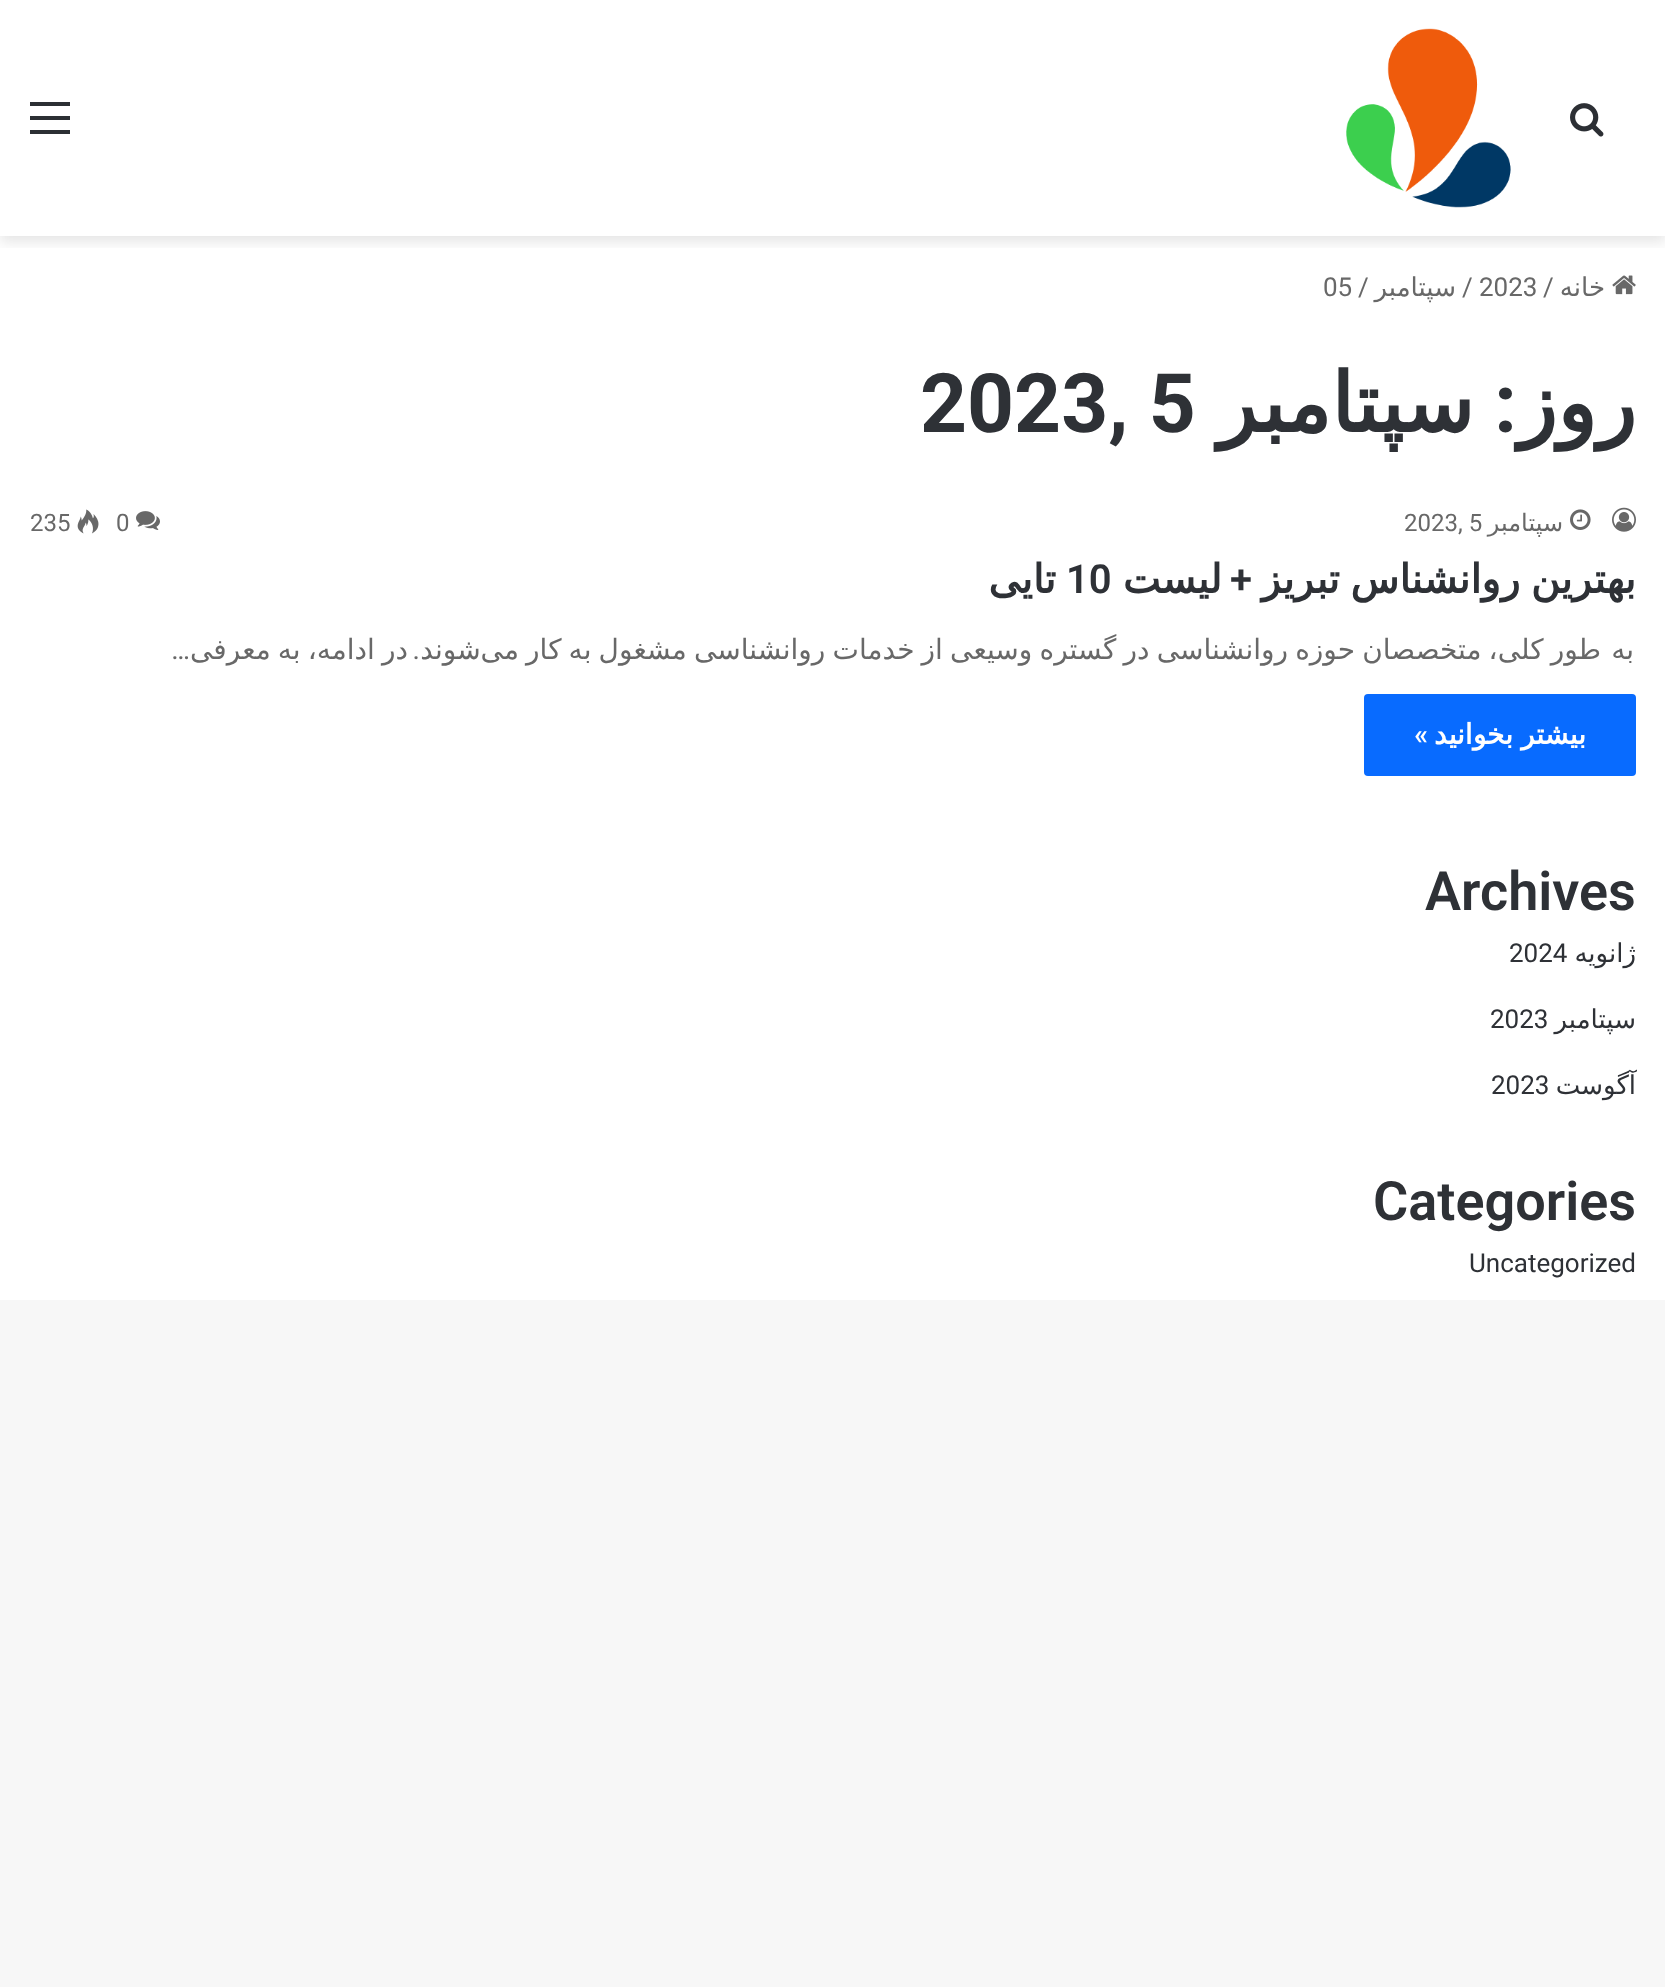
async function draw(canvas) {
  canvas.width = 1665
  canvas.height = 1987
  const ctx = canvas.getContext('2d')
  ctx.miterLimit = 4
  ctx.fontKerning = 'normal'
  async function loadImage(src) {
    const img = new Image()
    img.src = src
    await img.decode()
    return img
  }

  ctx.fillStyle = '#f7f7f7'
  ctx.fillRect(0, 0, 1665, 1987)
  ctx.fillStyle = '#fff'
  ctx.fillRect(0, 0, 1665, 1300)
  ctx.save()
  ctx.beginPath()
  ctx.rect(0, 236, 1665, 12)
  ctx.clip()
  ctx.fillStyle = '#0000001a'
  ctx.filter = 'blur(7px)'
  ctx.beginPath()
  ctx.rect(0, 6, 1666, 236)
  ctx.fill()
  ctx.filter = 'none'
  ctx.restore()
  ctx.drawImage(await loadImage('image0.png'), 1570, 103, 34, 34)
  ctx.drawImage(await loadImage('image1.png'), 1346, 28, 165, 180)
  ctx.fillStyle = '#2c2f34'
  ctx.fillRect(30, 116, 40, 4)
  ctx.fillRect(30, 102, 40, 4)
  ctx.fillRect(30, 130, 40, 4)
  ctx.drawImage(await loadImage('image2.png'), 1612, 275, 24, 20)
  ctx.direction = 'rtl'
  ctx.font = '26px DejaVu Sans'
  ctx.fillStyle = '#686868'
  ctx.fillText('خانه', 1605, 296)
  ctx.direction = 'ltr'
  ctx.font = '26px Roboto'
  ctx.fillText('/', 1543, 296)
  ctx.fillText('2023', 1479, 296)
  ctx.fillText('/', 1462, 296)
  ctx.direction = 'rtl'
  ctx.font = '26px DejaVu Sans'
  ctx.fillText('سپتامبر', 1456, 296)
  ctx.direction = 'ltr'
  ctx.font = '26px Roboto'
  ctx.fillText('/', 1358, 296)
  ctx.fillText('05', 1323, 296)
  ctx.direction = 'rtl'
  ctx.font = 'bold 82px DejaVu Sans'
  ctx.fillStyle = '#2e3136'
  ctx.fillText('روز', 1636, 432)
  ctx.font = 'bold 82px Roboto'
  ctx.fillText(':', 1517, 432)
  ctx.font = 'bold 82px DejaVu Sans'
  ctx.fillText('سپتامبر', 1474, 432)
  ctx.direction = 'ltr'
  ctx.font = 'bold 82px Roboto'
  ctx.fillText('2023, 5', 920, 432)
  ctx.drawImage(await loadImage('image3.png'), 1612, 507, 24, 25)
  ctx.drawImage(await loadImage('image4.png'), 1570, 509, 21, 21)
  ctx.direction = 'rtl'
  ctx.font = '24px DejaVu Sans'
  ctx.fillStyle = '#686868'
  ctx.fillText('سپتامبر', 1563, 531)
  ctx.direction = 'ltr'
  ctx.font = '24px Roboto'
  ctx.fillText('2023, 5', 1404, 531)
  ctx.drawImage(await loadImage('image5.png'), 136, 511, 24, 19)
  ctx.fillText('0', 116, 531)
  ctx.drawImage(await loadImage('image6.png'), 77, 509, 22, 25)
  ctx.fillText('235', 30, 531)
  ctx.wordSpacing = '-2px'
  ctx.direction = 'rtl'
  ctx.font = 'bold 40px DejaVu Sans'
  ctx.fillStyle = '#2e3136'
  ctx.fillText('بهترین روانشناس تبریز', 1636, 593)
  ctx.wordSpacing = '0px'
  ctx.font = '600 40px Roboto'
  ctx.fillText('+', 1252, 593)
  ctx.font = 'bold 40px DejaVu Sans'
  ctx.fillText('لیست', 1222, 593)
  ctx.direction = 'ltr'
  ctx.font = '600 40px Roboto'
  ctx.fillText('10', 1066, 593)
  ctx.direction = 'rtl'
  ctx.font = 'bold 40px DejaVu Sans'
  ctx.fillText('تایی', 1056, 593)
  ctx.wordSpacing = '-1.75px'
  ctx.font = '28px DejaVu Sans'
  ctx.fillStyle = '#686868'
  ctx.fillText('طور کلی، متخصصان حوزه روانشناسی در گستره وسیعی از خدمات روانشناسی مشغول به کار می‌شوند', 1601, 659)
  ctx.wordSpacing = '0px'
  ctx.fillText('به', 1634, 659)
  ctx.font = '28px Roboto'
  ctx.fillText('.', 420, 659)
  ctx.wordSpacing = '-1.75px'
  ctx.font = '28px DejaVu Sans'
  ctx.fillText('در ادامه، به معرفی', 408, 659)
  ctx.wordSpacing = '0px'
  ctx.font = '28px Roboto'
  ctx.fillText('…', 190, 659)
  ctx.fillStyle = '#086bff'
  ctx.beginPath()
  ctx.roundRect(1364, 694, 272, 82, 4)
  ctx.fill()
  ctx.wordSpacing = '-1px'
  ctx.font = 'bold 28px DejaVu Sans'
  ctx.fillStyle = '#fff'
  ctx.fillText('بیشتر بخوانید', 1586, 744)
  ctx.wordSpacing = '0px'
  ctx.font = '600 28px Roboto'
  ctx.fillText('»', 1428, 744)
  ctx.direction = 'ltr'
  ctx.font = '600 54px Roboto'
  ctx.fillStyle = '#2e3136'
  ctx.fillText('Archives', 1425, 910)
  ctx.direction = 'rtl'
  ctx.font = '26px DejaVu Sans'
  ctx.fillText('ژانویه', 1636, 962)
  ctx.direction = 'ltr'
  ctx.font = '26px Roboto'
  ctx.fillText('2024', 1509, 962)
  ctx.direction = 'rtl'
  ctx.font = '26px DejaVu Sans'
  ctx.fillText('سپتامبر', 1636, 1028)
  ctx.direction = 'ltr'
  ctx.font = '26px Roboto'
  ctx.fillText('2023', 1490, 1028)
  ctx.direction = 'rtl'
  ctx.font = '26px DejaVu Sans'
  ctx.fillText('آگوست', 1636, 1094)
  ctx.direction = 'ltr'
  ctx.font = '26px Roboto'
  ctx.fillText('2023', 1491, 1094)
  ctx.font = '600 54px Roboto'
  ctx.fillText('Categories', 1373, 1220)
  ctx.font = '26px Roboto'
  ctx.fillText('Uncategorized', 1469, 1272)
}

draw(document.querySelector('canvas'))
